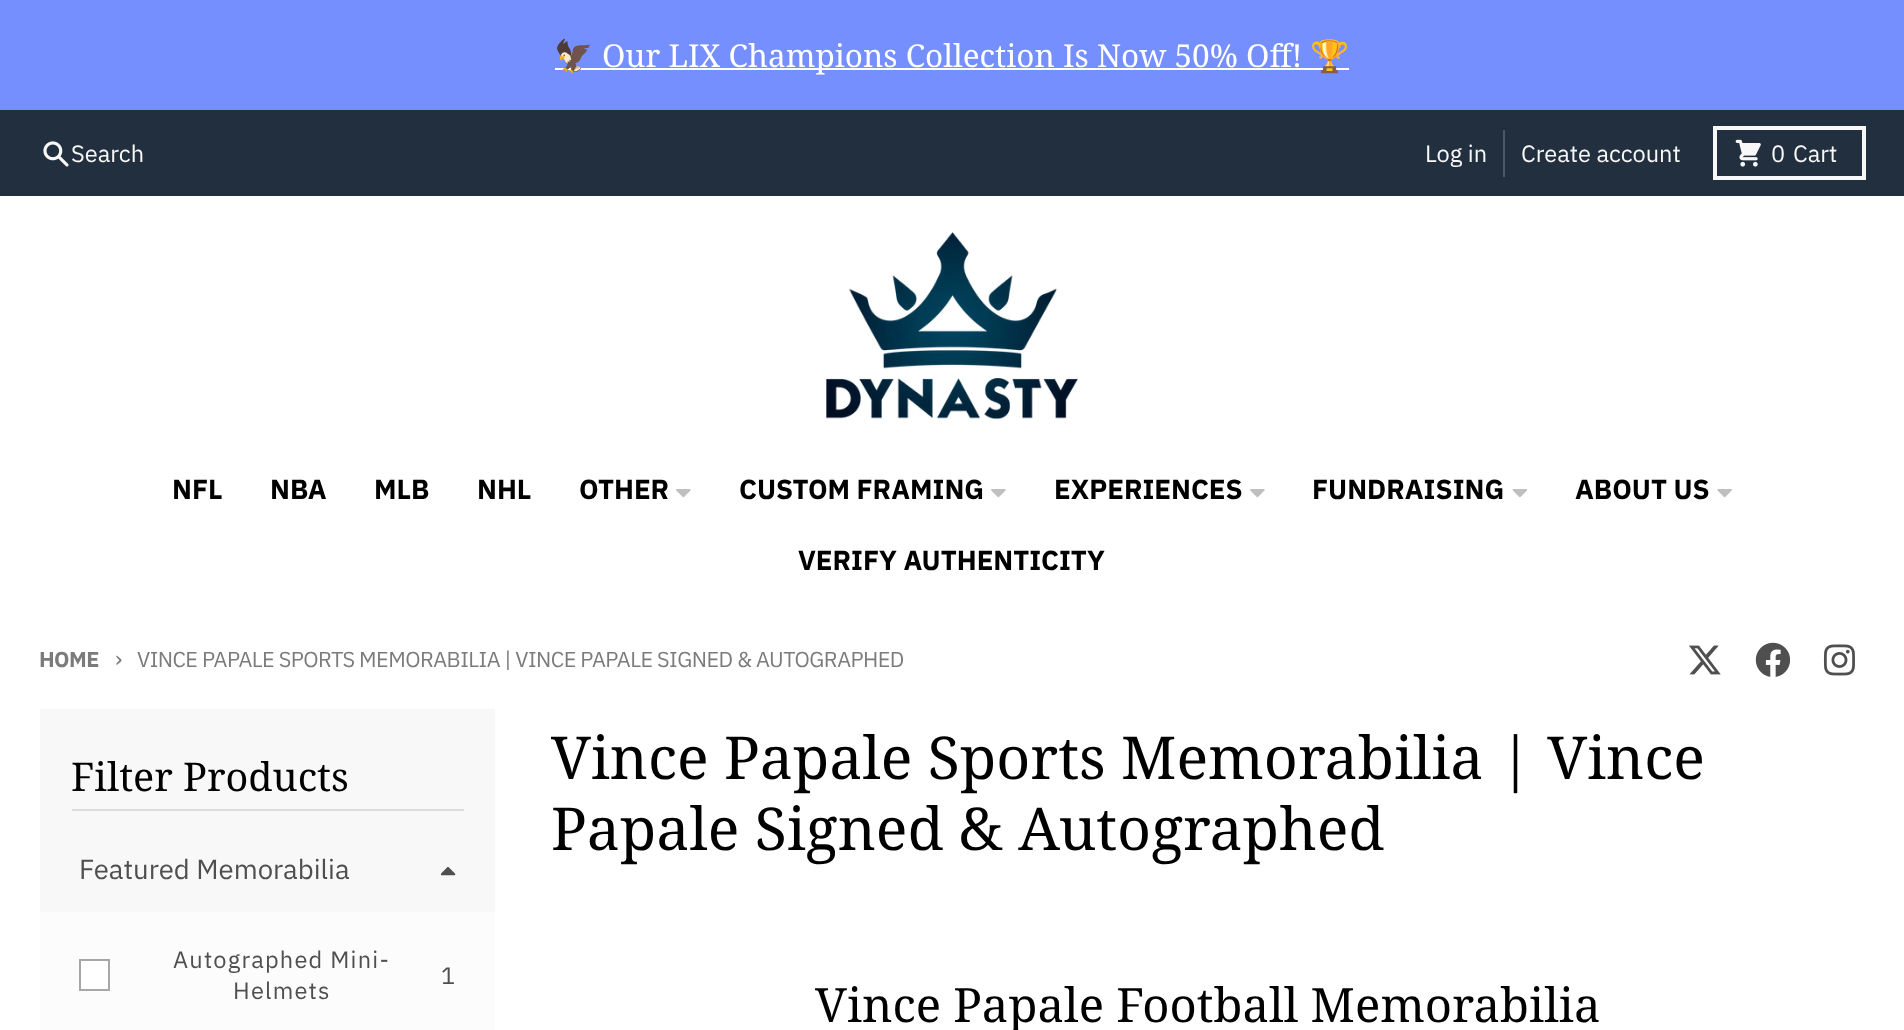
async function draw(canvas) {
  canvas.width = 1904
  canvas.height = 1030
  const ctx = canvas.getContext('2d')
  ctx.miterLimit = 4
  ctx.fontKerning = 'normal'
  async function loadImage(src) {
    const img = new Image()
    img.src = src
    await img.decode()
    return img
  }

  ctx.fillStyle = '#222f3e'
  ctx.fillRect(0, 0, 1904, 1030)
  ctx.fillStyle = '#768fff'
  ctx.fillRect(0, 0, 1904, 110)
  ctx.fillStyle = '#fff'
  ctx.fillRect(555, 68, 794, 2)
  ctx.font = '31.5px Noto Color Emoji'
  ctx.fillText('🦅', 554, 67)
  ctx.font = '31.5px Noto Serif'
  ctx.fillText('Our LIX Champions Collection Is Now 50% Off!', 602, 67)
  ctx.font = '31.5px Noto Color Emoji'
  ctx.fillText('🏆', 1310, 67)
  ctx.drawImage(await loadImage('image0.png'), 43, 141, 26, 26)
  ctx.font = '23.6px IBM Plex Sans'
  ctx.fillStyle = '#f8f8f8'
  ctx.fillText('Search', 71, 162)
  ctx.fillText('Log in', 1425, 162)
  ctx.fillStyle = '#4d5763'
  ctx.fillRect(1503, 130, 2, 47)
  ctx.fillStyle = '#f8f8f8'
  ctx.fillText('Create account', 1521, 162)
  ctx.strokeStyle = '#f8f8f8'
  ctx.lineWidth = 4
  ctx.strokeRect(1715, 128, 149, 50)
  ctx.drawImage(await loadImage('image1.png'), 1735, 139, 26, 28)
  ctx.fillText('0', 1771, 162)
  ctx.fillText('Cart', 1793, 162)
  ctx.fillStyle = '#fff'
  ctx.fillRect(0, 196, 1904, 834)
  ctx.drawImage(await loadImage('image2.png'), 826, 232, 252, 188)
  ctx.font = 'bold 27.5px IBM Plex Sans'
  ctx.fillStyle = '#000'
  ctx.fillText('NFL', 172, 499)
  ctx.fillText('NBA', 270, 499)
  ctx.fillText('MLB', 374, 499)
  ctx.fillText('NHL', 477, 499)
  ctx.fillText('OTHER', 579, 499)
  ctx.drawImage(await loadImage('image3.png'), 676, 489, 15, 9)
  ctx.fillText('CUSTOM FRAMING', 739, 499)
  ctx.drawImage(await loadImage('image3.png'), 991, 489, 15, 9)
  ctx.fillText('EXPERIENCES', 1054, 499)
  ctx.drawImage(await loadImage('image3.png'), 1250, 489, 15, 9)
  ctx.fillText('FUNDRAISING', 1312, 499)
  ctx.drawImage(await loadImage('image4.png'), 1512, 489, 15, 9)
  ctx.fillText('ABOUT US', 1575, 499)
  ctx.drawImage(await loadImage('image5.png'), 1717, 489, 15, 9)
  ctx.fillText('VERIFY AUTHENTICITY', 798, 570)
  ctx.letterSpacing = '-0.55px'
  ctx.font = 'bold 21.65px IBM Plex Sans'
  ctx.fillStyle = '#7b7b7b'
  ctx.fillText('HOME', 39, 667)
  ctx.font = '23.6px IBM Plex Sans'
  ctx.fillText('›', 115, 667)
  ctx.font = '21.65px IBM Plex Sans'
  ctx.fillText('VINCE PAPALE SPORTS MEMORABILIA | VINCE PAPALE SIGNED & AUTOGRAPHED', 137, 667)
  ctx.drawImage(await loadImage('image6.png'), 1689, 645, 32, 30)
  ctx.drawImage(await loadImage('image7.png'), 1755, 642, 35, 35)
  ctx.drawImage(await loadImage('image8.png'), 1823, 644, 32, 32)
  ctx.fillStyle = '#f8f8f8'
  ctx.fillRect(40, 709, 455, 203)
  ctx.fillStyle = '#dcdcdc'
  ctx.fillRect(72, 809, 392, 2)
  ctx.letterSpacing = '0px'
  ctx.font = '39.5px Noto Serif'
  ctx.fillStyle = '#000'
  ctx.fillText('Filter Products', 71, 791)
  ctx.font = '27.5px IBM Plex Sans'
  ctx.fillStyle = '#4f4f4f'
  ctx.fillText('Featured Memorabilia', 79, 879)
  ctx.drawImage(await loadImage('image9.png'), 441, 867, 15, 9)
  ctx.fillStyle = '#fcfcfc'
  ctx.fillRect(40, 912, 455, 118)
  ctx.fillStyle = '#fff'
  ctx.beginPath()
  ctx.rect(80, 960, 29, 30)
  ctx.fill()
  ctx.strokeStyle = '#a7a7a7'
  ctx.lineWidth = 2
  ctx.stroke()
  ctx.letterSpacing = '1.2px'
  ctx.font = '23.6px IBM Plex Sans'
  ctx.fillStyle = '#4f4f4f'
  ctx.fillText('Autographed Mini-', 173, 968)
  ctx.fillText('Helmets', 233, 999)
  ctx.fillText('1', 441, 984)
  ctx.letterSpacing = '0px'
  ctx.font = '59.1px Noto Serif'
  ctx.fillStyle = '#000'
  ctx.fillText('Vince Papale Sports Memorabilia | Vince', 551, 779)
  ctx.fillText('Papale Signed & Autographed', 551, 850)
  ctx.font = '47.25px Noto Serif'
  ctx.fillText('Vince Papale Football Memorabilia', 815, 1022)
}

draw(document.querySelector('canvas'))
